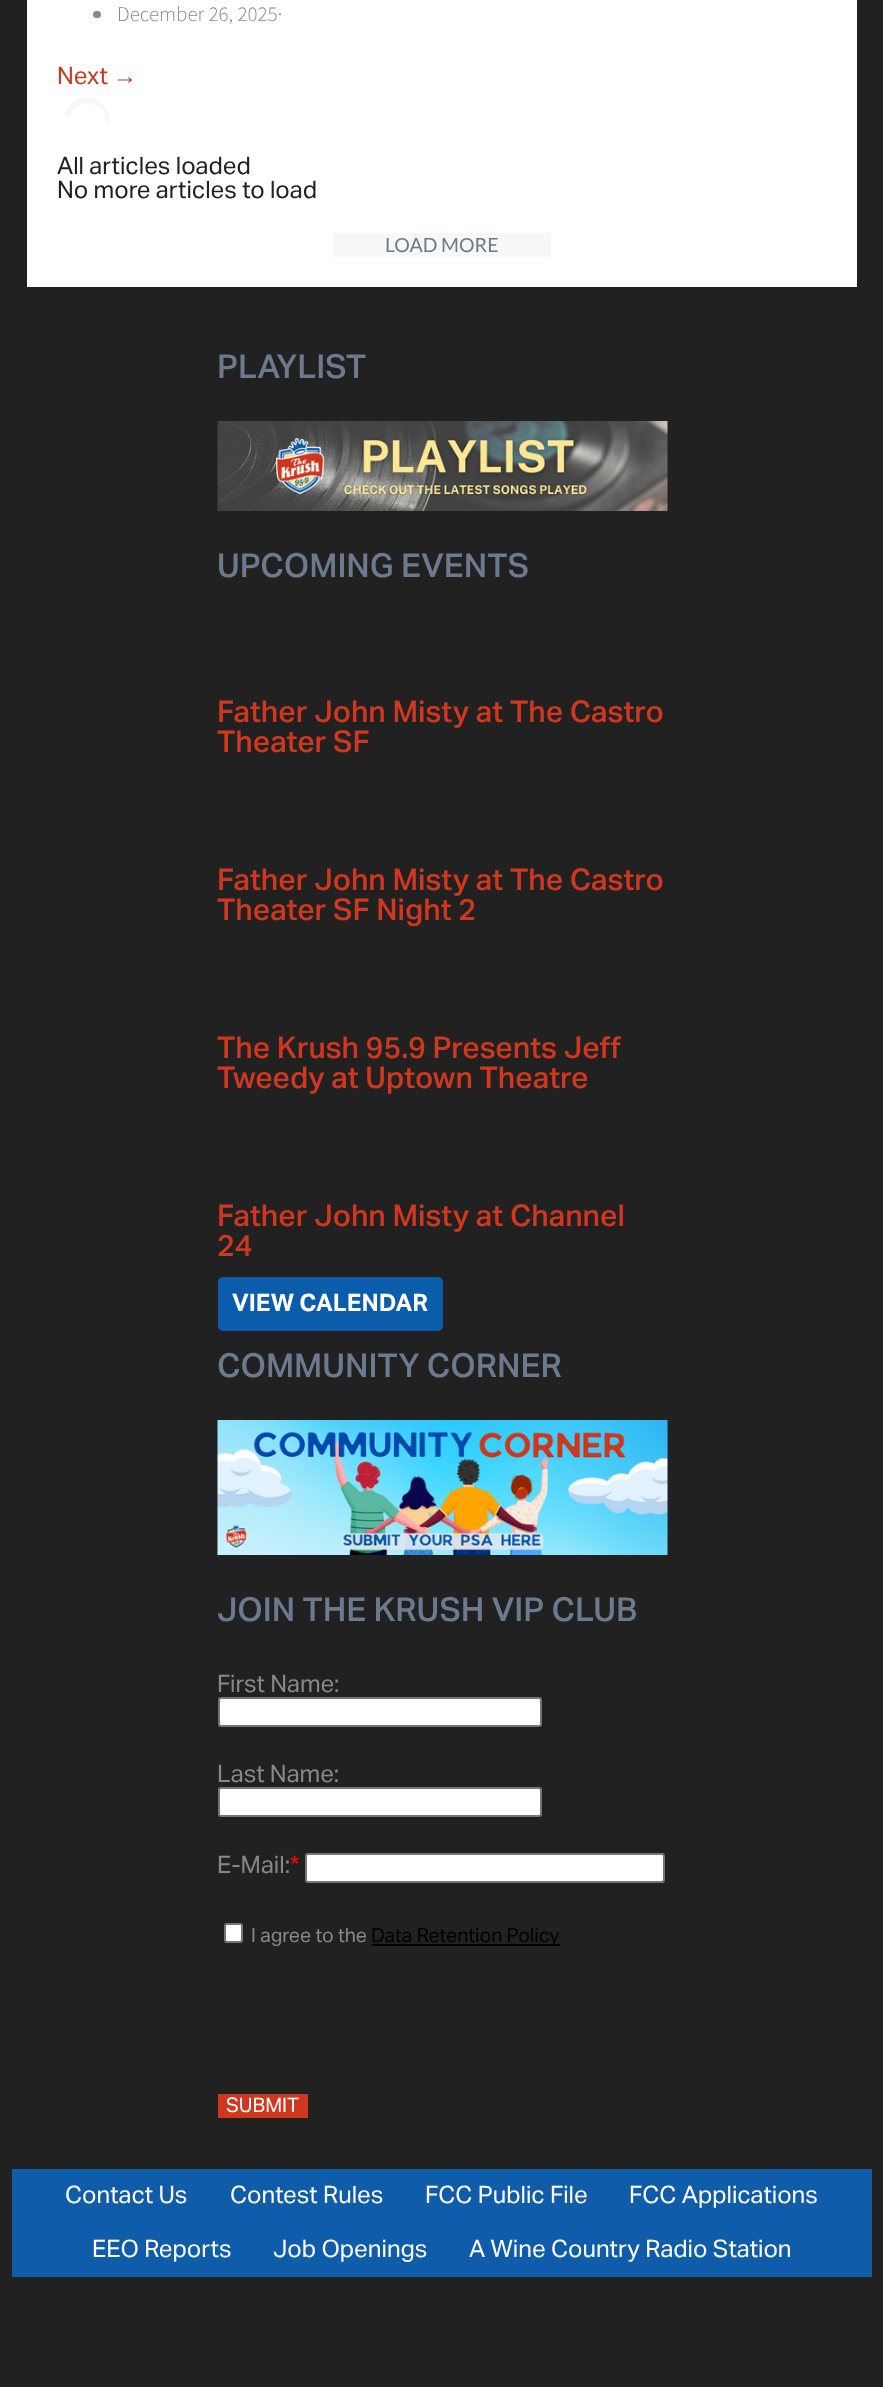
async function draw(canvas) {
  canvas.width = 883
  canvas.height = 2387
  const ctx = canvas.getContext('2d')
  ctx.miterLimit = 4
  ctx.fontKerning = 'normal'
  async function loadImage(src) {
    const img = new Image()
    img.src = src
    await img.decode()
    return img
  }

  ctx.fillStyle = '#212121'
  ctx.fillRect(0, 0, 883, 2387)
  ctx.fillStyle = '#fff'
  ctx.fillRect(27, 0, 830, 287)
  ctx.fillStyle = '#888'
  ctx.beginPath()
  ctx.roundRect(93, 11, 8, 7, 3.5)
  ctx.fill()
  ctx.font = '300 21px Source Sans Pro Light'
  ctx.fillText('December 26, 2025·', 117, 21)
  ctx.font = '24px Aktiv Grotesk'
  ctx.fillStyle = '#cf371e'
  ctx.fillText('Next', 57, 84)
  ctx.font = '24px Liberation Sans'
  ctx.fillText('→', 113, 84)
  ctx.fillStyle = '#f7f7f7'
  ctx.beginPath()
  ctx.moveTo(109, 124)
  ctx.bezierCurveTo(114, 95, 70, 87, 65, 116)
  ctx.lineTo(70, 117)
  ctx.bezierCurveTo(74, 95, 109, 101, 105, 123)
  ctx.closePath()
  ctx.fill()
  ctx.font = '24px Aktiv Grotesk'
  ctx.fillStyle = '#212121'
  ctx.fillText('All articles loaded', 57, 174)
  ctx.fillText('No more articles to load', 57, 198)
  ctx.fillStyle = '#f7f7f7'
  ctx.fillRect(333, 233, 218, 24)
  ctx.font = '19.5px Lato'
  ctx.fillStyle = '#6b7a8f'
  ctx.fillText('LOAD MORE', 385, 252)
  ctx.font = '500 33px Aktiv Grotesk'
  ctx.fillText('PLAYLIST', 217, 378)
  ctx.drawImage(await loadImage('image0.png'), 217, 421, 451, 90)
  ctx.fillText('UPCOMING EVENTS', 217, 577)
  ctx.font = '500 30px Aktiv Grotesk'
  ctx.fillStyle = '#cf371e'
  ctx.fillText('Father John Misty at The Castro', 217, 722)
  ctx.fillText('Theater SF', 217, 752)
  ctx.fillText('Father John Misty at The Castro', 217, 890)
  ctx.fillText('Theater SF Night 2', 217, 920)
  ctx.fillText('The Krush 95.9 Presents Jeff', 217, 1058)
  ctx.fillText('Tweedy at Uptown Theatre', 217, 1088)
  ctx.fillText('Father John Misty at Channel', 217, 1226)
  ctx.fillText('24', 217, 1256)
  ctx.fillStyle = '#0c5cac'
  ctx.beginPath()
  ctx.roundRect(218, 1277, 225, 54, 5)
  ctx.fill()
  ctx.font = 'bold 24px Aktiv Grotesk'
  ctx.fillStyle = '#fff'
  ctx.fillText('VIEW CALENDAR', 232, 1311)
  ctx.font = '500 33px Aktiv Grotesk'
  ctx.fillStyle = '#6b7a8f'
  ctx.fillText('COMMUNITY CORNER', 217, 1377)
  ctx.drawImage(await loadImage('image1.png'), 217, 1420, 451, 135)
  ctx.fillText('JOIN THE KRUSH VIP CLUB', 217, 1621)
  ctx.font = '24px Aktiv Grotesk'
  ctx.fillStyle = '#888'
  ctx.fillText('First Name:', 217, 1692)
  ctx.fillStyle = '#fff'
  ctx.beginPath()
  ctx.roundRect(219, 1698, 322, 28, 2)
  ctx.fill()
  ctx.strokeStyle = '#767676'
  ctx.lineWidth = 2
  ctx.stroke()
  ctx.fillStyle = '#888'
  ctx.fillText('Last Name:', 217, 1782)
  ctx.fillStyle = '#fff'
  ctx.beginPath()
  ctx.roundRect(219, 1788, 322, 28, 2)
  ctx.fill()
  ctx.stroke()
  ctx.fillStyle = '#888'
  ctx.fillText('E-Mail:', 217, 1873)
  ctx.fillStyle = '#f00'
  ctx.fillText('*', 290, 1873)
  ctx.fillStyle = '#fff'
  ctx.beginPath()
  ctx.roundRect(306, 1854, 358, 28, 2)
  ctx.fill()
  ctx.stroke()
  ctx.beginPath()
  ctx.roundRect(225, 1924, 17, 18, 2)
  ctx.fill()
  ctx.stroke()
  ctx.font = '19.5px Aktiv Grotesk'
  ctx.fillStyle = '#888'
  ctx.fillText('I agree to the', 251, 1942)
  ctx.fillStyle = '#000'
  ctx.fillRect(372, 1944, 188, 2)
  ctx.fillText('Data Retention Policy', 371, 1942)
  ctx.fillStyle = '#cf371e'
  ctx.fillRect(218, 2094, 90, 24)
  ctx.font = '20px Aktiv Grotesk'
  ctx.fillStyle = '#fff'
  ctx.fillText('SUBMIT', 226, 2112)
  ctx.fillStyle = '#0f5cab'
  ctx.fillRect(12, 2169, 860, 108)
  ctx.font = '24px Aktiv Grotesk'
  ctx.fillStyle = '#fff'
  ctx.fillText('Contact Us', 65, 2203)
  ctx.fillText('Contest Rules', 230, 2203)
  ctx.fillText('FCC Public File', 425, 2203)
  ctx.fillText('FCC Applications', 629, 2203)
  ctx.fillText('EEO Reports', 92, 2257)
  ctx.fillText('Job Openings', 273, 2257)
  ctx.fillText('A Wine Country Radio Station', 469, 2257)
}

draw(document.querySelector('canvas'))
